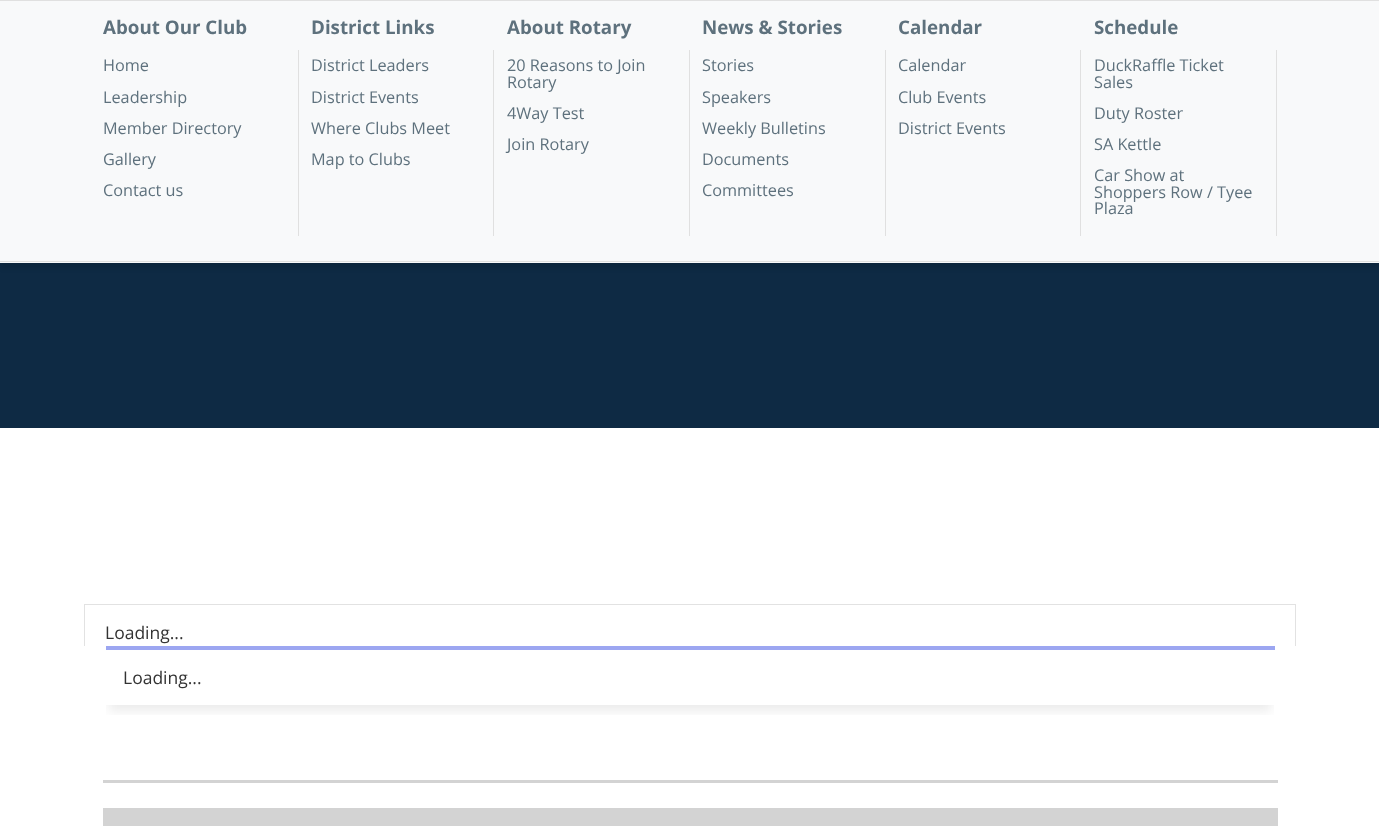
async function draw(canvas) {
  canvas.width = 1379
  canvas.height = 826
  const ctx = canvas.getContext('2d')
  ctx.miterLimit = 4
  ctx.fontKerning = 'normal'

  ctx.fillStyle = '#fff'
  ctx.fillRect(0, 0, 1379, 826)
  ctx.fillStyle = '#e0e0e0'
  ctx.fillRect(0, 0, 1379, 1)
  ctx.fillStyle = '#f8f9fa'
  ctx.fillRect(0, 1, 1379, 49)
  ctx.font = 'bold 18.75px Open Sans'
  ctx.fillStyle = '#5e717d'
  ctx.fillText('About Our Club', 103, 34)
  ctx.fillText('District Links', 311, 34)
  ctx.fillText('About Rotary', 507, 34)
  ctx.fillText('News & Stories', 702, 34)
  ctx.fillText('Calendar', 898, 34)
  ctx.fillText('Schedule', 1094, 34)
  ctx.fillStyle = '#0e2a44'
  ctx.fillRect(0, 263, 1379, 165)
  ctx.fillStyle = '#0000001a'
  ctx.filter = 'blur(2.5px)'
  ctx.beginPath()
  ctx.rect(0, 55, 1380, 213)
  ctx.fill()
  ctx.filter = 'none'
  ctx.fillStyle = '#f8f9fa'
  ctx.fillRect(0, 50, 1379, 213)
  ctx.fillStyle = '#e0e0e0'
  ctx.fillRect(0, 261, 1379, 1)
  ctx.fillRect(298, 50, 1, 186)
  ctx.font = '16.25px Open Sans'
  ctx.fillStyle = '#5e717d'
  ctx.fillText('Home', 103, 71)
  ctx.fillText('Leadership', 103, 103)
  ctx.fillText('Member Directory', 103, 134)
  ctx.fillText('Gallery', 103, 165)
  ctx.fillText('Contact us', 103, 196)
  ctx.fillStyle = '#e0e0e0'
  ctx.fillRect(493, 50, 1, 186)
  ctx.fillStyle = '#5e717d'
  ctx.fillText('District Leaders', 311, 71)
  ctx.fillText('District Events', 311, 103)
  ctx.fillText('Where Clubs Meet', 311, 134)
  ctx.fillText('Map to Clubs', 311, 165)
  ctx.fillStyle = '#e0e0e0'
  ctx.fillRect(689, 50, 1, 186)
  ctx.fillStyle = '#5e717d'
  ctx.fillText('20 Reasons to Join', 507, 71)
  ctx.fillText('Rotary', 507, 88)
  ctx.fillText('4Way Test', 507, 119)
  ctx.fillText('Join Rotary', 507, 150)
  ctx.fillStyle = '#e0e0e0'
  ctx.fillRect(885, 50, 1, 186)
  ctx.fillStyle = '#5e717d'
  ctx.fillText('Stories', 702, 71)
  ctx.fillText('Speakers', 702, 103)
  ctx.fillText('Weekly Bulletins', 702, 134)
  ctx.fillText('Documents', 702, 165)
  ctx.fillText('Committees', 702, 196)
  ctx.fillStyle = '#e0e0e0'
  ctx.fillRect(1080, 50, 1, 186)
  ctx.fillStyle = '#5e717d'
  ctx.fillText('Calendar', 898, 71)
  ctx.fillText('Club Events', 898, 103)
  ctx.fillText('District Events', 898, 134)
  ctx.fillStyle = '#e0e0e0'
  ctx.fillRect(1276, 50, 1, 186)
  ctx.fillStyle = '#5e717d'
  ctx.fillText('DuckRaffle Ticket', 1094, 71)
  ctx.fillText('Sales', 1094, 88)
  ctx.fillText('Duty Roster', 1094, 119)
  ctx.fillText('SA Kettle', 1094, 150)
  ctx.fillText('Car Show at', 1094, 181)
  ctx.fillText('Shoppers Row / Tyee', 1094, 198)
  ctx.fillText('Plaza', 1094, 214)
  ctx.save()
  ctx.beginPath()
  ctx.rect(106, 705, 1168, 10)
  ctx.clip()
  ctx.fillStyle = '#00000014'
  ctx.filter = 'blur(6px)'
  ctx.beginPath()
  ctx.rect(109, 665, 1162, 46)
  ctx.fill()
  ctx.filter = 'none'
  ctx.restore()
  ctx.fillStyle = '#9ca6f1'
  ctx.fillRect(106, 646, 1169, 4)
  ctx.fillStyle = '#d3d3d3'
  ctx.fillRect(103, 808, 1175, 18)
  ctx.save()
  ctx.beginPath()
  ctx.rect(84, 579, 1212, 67)
  ctx.clip()
  ctx.strokeStyle = '#e2e2e2'
  ctx.strokeRect(84.5, 604.5, 1211, 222)
  ctx.restore()
  ctx.font = '17.5px Open Sans'
  ctx.fillStyle = '#333'
  ctx.fillText('Loading...', 105, 639)
  ctx.fillText('Loading...', 123, 684)
  ctx.fillStyle = '#d3d3d3'
  ctx.fillRect(103, 780, 1175, 3)
}

draw(document.querySelector('canvas'))
